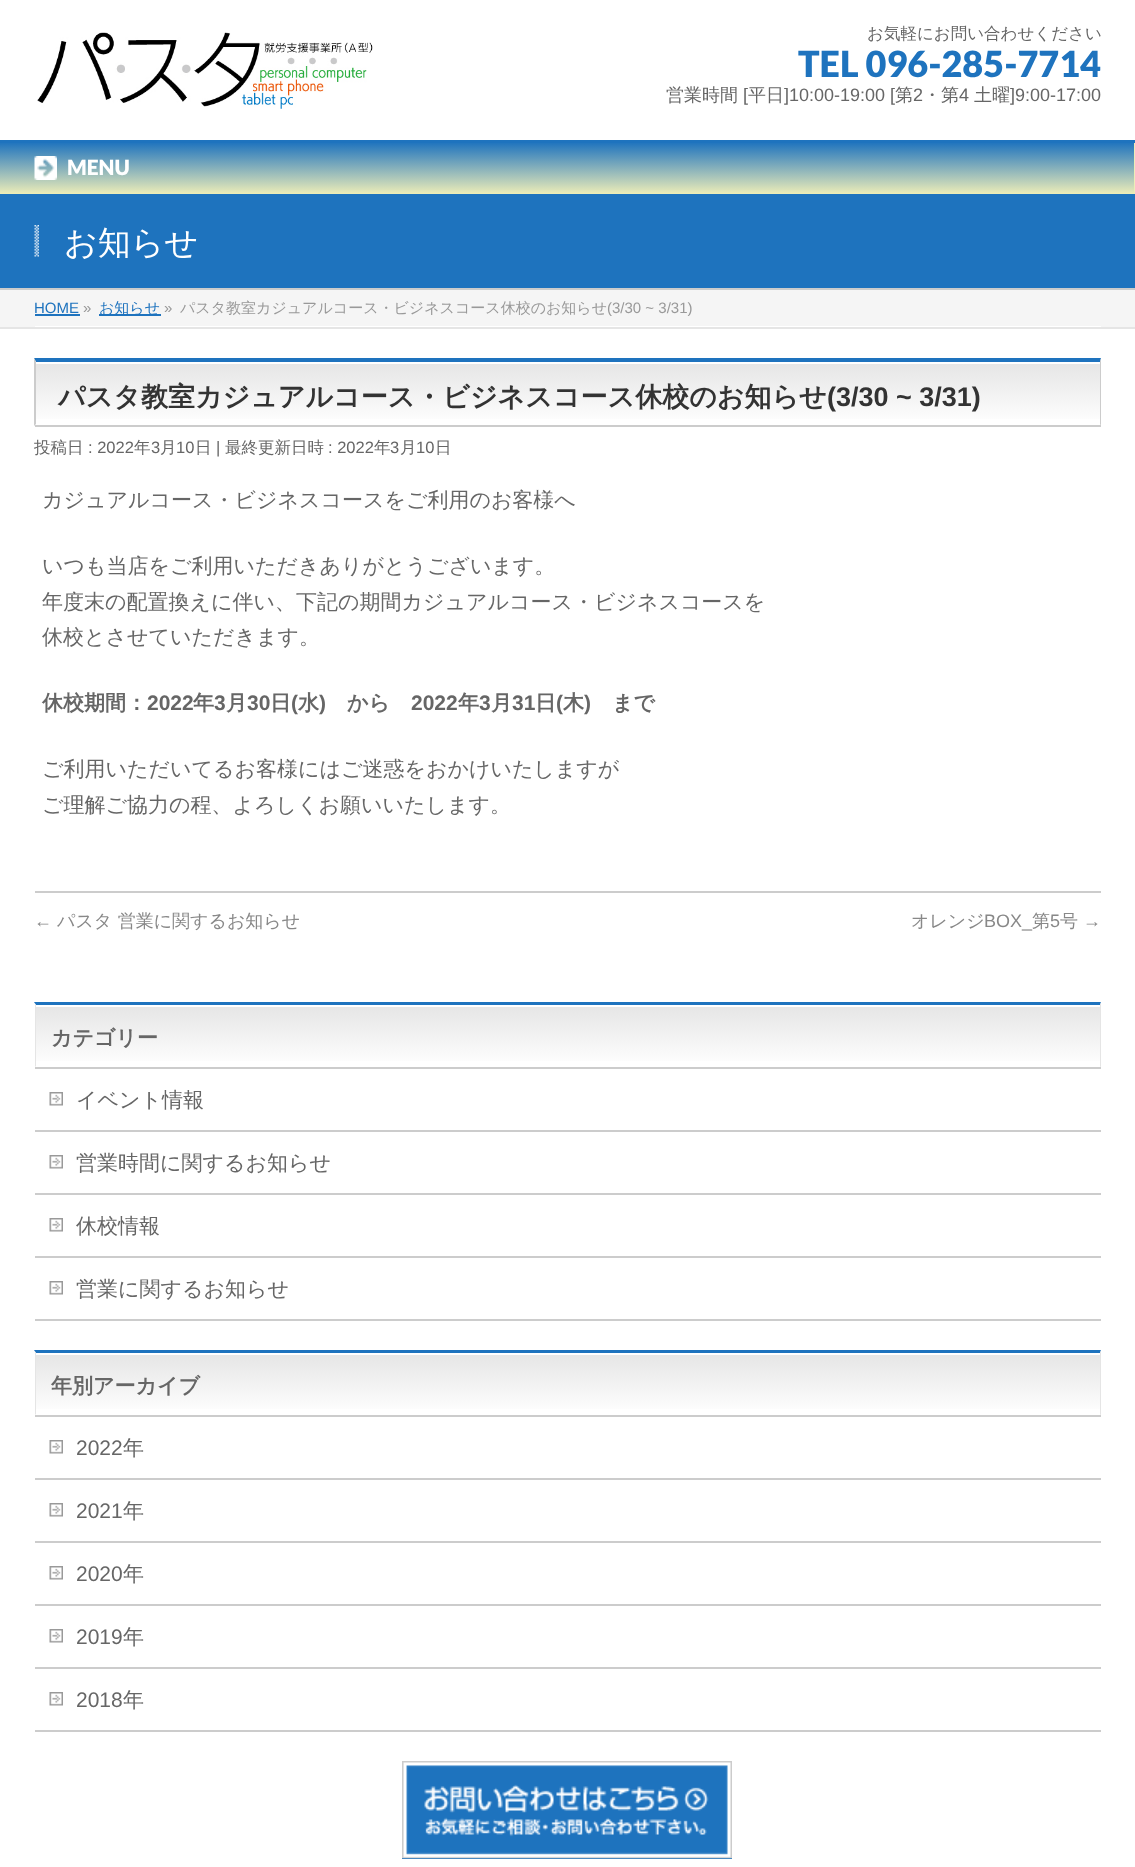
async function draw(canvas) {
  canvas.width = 1135
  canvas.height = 1867
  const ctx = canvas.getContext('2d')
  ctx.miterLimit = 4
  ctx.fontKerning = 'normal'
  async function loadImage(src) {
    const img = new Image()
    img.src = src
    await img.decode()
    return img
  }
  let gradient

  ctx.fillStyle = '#fff'
  ctx.fillRect(0, 0, 1135, 1867)
  ctx.drawImage(await loadImage('image0.png'), 37, 32, 336, 77)
  ctx.font = '500 16.5px WenQuanYi Zen Hei'
  ctx.fillStyle = '#666'
  ctx.fillText('お気軽にお問い合わせください', 867, 39)
  ctx.font = '900 36px Lato'
  ctx.fillStyle = '#1e73be'
  ctx.fillText('TEL 096-285-7714', 798, 77)
  ctx.font = '500 18px WenQuanYi Zen Hei'
  ctx.fillStyle = '#666'
  ctx.fillText('営業時間', 666, 101)
  ctx.font = '18px Liberation Sans'
  ctx.fillText('[', 743, 101)
  ctx.font = '500 18px WenQuanYi Zen Hei'
  ctx.fillText('平日', 748, 101)
  ctx.font = '18px Liberation Sans'
  ctx.fillText(']10:00-19:00 [', 784, 101)
  ctx.font = '500 18px WenQuanYi Zen Hei'
  ctx.fillText('第', 895, 101)
  ctx.font = '18px Liberation Sans'
  ctx.fillText('2', 913, 101)
  ctx.font = '500 18px WenQuanYi Zen Hei'
  ctx.fillText('・第', 923, 101)
  ctx.font = '18px Liberation Sans'
  ctx.fillText('4', 959, 101)
  ctx.font = '500 18px WenQuanYi Zen Hei'
  ctx.fillText('土曜', 974, 101)
  ctx.font = '18px Liberation Sans'
  ctx.fillText(']9:00-17:00', 1010, 101)
  ctx.fillStyle = '#1e73be'
  ctx.fillRect(0, 140, 1135, 3)
  gradient = ctx.createLinearGradient(567, 142, 567, 194)
  gradient.addColorStop(0, '#1e73be')
  gradient.addColorStop(1, '#ededb8')
  ctx.fillStyle = gradient
  ctx.fillRect(0, 143, 1134, 51)
  ctx.fillStyle = '#ededb8'
  ctx.fillRect(1134, 143, 1, 51)
  ctx.drawImage(await loadImage('image1.png'), 34, 156, 23, 24)
  ctx.font = '900 21px Lato'
  ctx.fillStyle = '#fff'
  ctx.fillText('MENU', 67, 175)
  ctx.fillStyle = '#1e73be'
  ctx.fillRect(0, 194, 1135, 94)
  ctx.fillStyle = '#ccc'
  ctx.fillRect(0, 288, 1135, 2)
  ctx.drawImage(await loadImage('image2.png'), 34, 225, 5, 32)
  ctx.font = '500 33px WenQuanYi Zen Hei'
  ctx.fillStyle = '#fff'
  ctx.fillText('お知らせ', 64, 254)
  ctx.fillStyle = '#f5f5f5'
  ctx.fillRect(0, 290, 1135, 37)
  ctx.fillStyle = '#e5e5e5'
  ctx.fillRect(0, 327, 1135, 2)
  ctx.fillStyle = '#fff'
  ctx.fillRect(35, 326, 1066, 1)
  ctx.font = '15px Liberation Sans'
  ctx.fillStyle = '#1e73be'
  ctx.fillText('HOME', 34, 313)
  ctx.fillRect(35, 314, 45, 2)
  ctx.fillStyle = '#999'
  ctx.fillText('»', 83, 313)
  ctx.fillStyle = '#1e73be'
  ctx.fillRect(99, 314, 62, 2)
  ctx.font = '500 15px WenQuanYi Zen Hei'
  ctx.fillText('お知らせ', 99, 313)
  ctx.font = '15px Liberation Sans'
  ctx.fillStyle = '#999'
  ctx.fillText('»', 164, 313)
  ctx.font = '500 15px WenQuanYi Zen Hei'
  ctx.fillText('パスタ教室カジュアルコース・ビジネスコース休校のお知らせ', 180, 313)
  ctx.font = '15px Liberation Sans'
  ctx.fillText('(3/30 ~ 3/31)', 607, 313)
  gradient = ctx.createLinearGradient(36, 362, 36, 425)
  gradient.addColorStop(0, '#e5e5e5')
  gradient.addColorStop(1, '#fff')
  ctx.fillStyle = gradient
  ctx.fillRect(36, 364, 1064, 55)
  ctx.fillStyle = '#1e73be'
  ctx.beginPath()
  ctx.moveTo(34, 358)
  ctx.lineTo(1101, 358)
  ctx.lineTo(1100, 362)
  ctx.lineTo(36, 362)
  ctx.closePath()
  ctx.fill()
  ctx.fillStyle = '#ccc'
  ctx.beginPath()
  ctx.moveTo(1101, 358)
  ctx.lineTo(1101, 426)
  ctx.lineTo(1100, 424)
  ctx.lineTo(1100, 362)
  ctx.closePath()
  ctx.fill()
  ctx.fillRect(35, 425, 1066, 2)
  ctx.beginPath()
  ctx.moveTo(34, 426)
  ctx.lineTo(34, 358)
  ctx.lineTo(36, 362)
  ctx.lineTo(36, 424)
  ctx.closePath()
  ctx.fill()
  ctx.font = 'bold 27px WenQuanYi Zen Hei'
  ctx.fillStyle = '#333'
  ctx.fillText('パスタ教室カジュアルコース・ビジネスコース休校のお知らせ', 58, 406)
  ctx.font = 'bold 27px Liberation Sans'
  ctx.fillText('(3/30 ~ 3/31)', 827, 406)
  ctx.font = '500 16.5px WenQuanYi Zen Hei'
  ctx.fillStyle = '#666'
  ctx.fillText('投稿日', 34, 453)
  ctx.font = '16.5px Liberation Sans'
  ctx.fillText(': 2022', 88, 453)
  ctx.font = '500 16.5px WenQuanYi Zen Hei'
  ctx.fillText('年', 134, 453)
  ctx.font = '16.5px Liberation Sans'
  ctx.fillText('3', 151, 453)
  ctx.font = '500 16.5px WenQuanYi Zen Hei'
  ctx.fillText('月', 160, 453)
  ctx.font = '16.5px Liberation Sans'
  ctx.fillText('10', 176, 453)
  ctx.font = '500 16.5px WenQuanYi Zen Hei'
  ctx.fillText('日', 195, 453)
  ctx.font = '16.5px Liberation Sans'
  ctx.fillText('|', 216, 453)
  ctx.font = '500 16.5px WenQuanYi Zen Hei'
  ctx.fillText('最終更新日時', 225, 453)
  ctx.font = '16.5px Liberation Sans'
  ctx.fillText(': 2022', 328, 453)
  ctx.font = '500 16.5px WenQuanYi Zen Hei'
  ctx.fillText('年', 374, 453)
  ctx.font = '16.5px Liberation Sans'
  ctx.fillText('3', 390, 453)
  ctx.font = '500 16.5px WenQuanYi Zen Hei'
  ctx.fillText('月', 400, 453)
  ctx.font = '16.5px Liberation Sans'
  ctx.fillText('10', 416, 453)
  ctx.font = '500 16.5px WenQuanYi Zen Hei'
  ctx.fillText('日', 435, 453)
  ctx.font = '500 21px WenQuanYi Zen Hei'
  ctx.fillText('カジュアルコース・ビジネスコースをご利用のお客様へ', 42, 507)
  ctx.fillText('いつも当店をご利用いただきありがとうございます。', 42, 573)
  ctx.fillText('年度末の配置換えに伴い、下記の期間カジュアルコース・ビジネスコースを', 42, 609)
  ctx.fillText('休校とさせていただきます。', 42, 644)
  ctx.font = 'bold 21px WenQuanYi Zen Hei'
  ctx.fillText('休校期間：', 42, 710)
  ctx.font = 'bold 21px Liberation Sans'
  ctx.fillText('2022', 147, 710)
  ctx.font = 'bold 21px WenQuanYi Zen Hei'
  ctx.fillText('年', 193, 710)
  ctx.font = 'bold 21px Liberation Sans'
  ctx.fillText('3', 214, 710)
  ctx.font = 'bold 21px WenQuanYi Zen Hei'
  ctx.fillText('月', 226, 710)
  ctx.font = 'bold 21px Liberation Sans'
  ctx.fillText('30', 247, 710)
  ctx.font = 'bold 21px WenQuanYi Zen Hei'
  ctx.fillText('日', 270, 710)
  ctx.font = 'bold 21px Liberation Sans'
  ctx.fillText('(', 291, 710)
  ctx.font = 'bold 21px WenQuanYi Zen Hei'
  ctx.fillText('水', 298, 710)
  ctx.font = 'bold 21px Liberation Sans'
  ctx.fillText(')', 319, 710)
  ctx.font = 'bold 21px WenQuanYi Zen Hei'
  ctx.fillText('から', 347, 710)
  ctx.font = 'bold 21px Liberation Sans'
  ctx.fillText('2022', 411, 710)
  ctx.font = 'bold 21px WenQuanYi Zen Hei'
  ctx.fillText('年', 458, 710)
  ctx.font = 'bold 21px Liberation Sans'
  ctx.fillText('3', 479, 710)
  ctx.font = 'bold 21px WenQuanYi Zen Hei'
  ctx.fillText('月', 491, 710)
  ctx.font = 'bold 21px Liberation Sans'
  ctx.fillText('31', 512, 710)
  ctx.font = 'bold 21px WenQuanYi Zen Hei'
  ctx.fillText('日', 535, 710)
  ctx.font = 'bold 21px Liberation Sans'
  ctx.fillText('(', 556, 710)
  ctx.font = 'bold 21px WenQuanYi Zen Hei'
  ctx.fillText('木', 563, 710)
  ctx.font = 'bold 21px Liberation Sans'
  ctx.fillText(')', 584, 710)
  ctx.font = 'bold 21px WenQuanYi Zen Hei'
  ctx.fillText('まで', 612, 710)
  ctx.font = '500 21px WenQuanYi Zen Hei'
  ctx.fillText('ご利用いただいてるお客様にはご迷惑をおかけいたしますが', 42, 776)
  ctx.fillText('ご理解ご協力の程、よろしくお願いいたします。', 42, 812)
  ctx.fillStyle = '#ccc'
  ctx.fillRect(35, 891, 1066, 2)
  ctx.font = '18px Liberation Sans'
  ctx.fillStyle = '#888'
  ctx.fillText('←', 34, 927)
  ctx.font = '500 18px WenQuanYi Zen Hei'
  ctx.fillText('パスタ 営業に関するお知らせ', 57, 927)
  ctx.fillText('オレンジ', 911, 927)
  ctx.font = '18px Liberation Sans'
  ctx.fillText('BOX_', 984, 927)
  ctx.font = '500 18px WenQuanYi Zen Hei'
  ctx.fillText('第', 1032, 927)
  ctx.font = '18px Liberation Sans'
  ctx.fillText('5', 1050, 927)
  ctx.font = '500 18px WenQuanYi Zen Hei'
  ctx.fillText('号', 1060, 927)
  ctx.font = '18px Liberation Sans'
  ctx.fillText('→', 1083, 927)
  gradient = ctx.createLinearGradient(36, 1005, 36, 1067)
  gradient.addColorStop(0, '#e5e5e5')
  gradient.addColorStop(1, '#fff')
  ctx.fillStyle = gradient
  ctx.fillRect(36, 1007, 1064, 54)
  ctx.fillStyle = '#1e73be'
  ctx.beginPath()
  ctx.moveTo(34, 1002)
  ctx.lineTo(1101, 1002)
  ctx.lineTo(1100, 1005)
  ctx.lineTo(36, 1005)
  ctx.closePath()
  ctx.fill()
  ctx.fillStyle = '#e5e5e5'
  ctx.beginPath()
  ctx.moveTo(1101, 1002)
  ctx.lineTo(1101, 1068)
  ctx.lineTo(1100, 1066)
  ctx.lineTo(1100, 1005)
  ctx.closePath()
  ctx.fill()
  ctx.fillStyle = '#ccc'
  ctx.fillRect(35, 1067, 1066, 2)
  ctx.save()
  ctx.beginPath()
  ctx.rect(35, 1002, 1066, 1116)
  ctx.clip()
  ctx.fillStyle = '#e5e5e5'
  ctx.beginPath()
  ctx.moveTo(34, 1068)
  ctx.lineTo(34, 1002)
  ctx.lineTo(36, 1005)
  ctx.lineTo(36, 1066)
  ctx.closePath()
  ctx.fill()
  ctx.restore()
  ctx.font = 'bold 21px WenQuanYi Zen Hei'
  ctx.fillStyle = '#666'
  ctx.fillText('カテゴリー', 51, 1045)
  ctx.fillStyle = '#ccc'
  ctx.fillRect(35, 1130, 1066, 2)
  ctx.drawImage(await loadImage('image3.png'), 49, 1092, 14, 14)
  ctx.font = '500 21px WenQuanYi Zen Hei'
  ctx.fillStyle = '#666'
  ctx.fillText('イベント情報', 76, 1107)
  ctx.fillStyle = '#ccc'
  ctx.fillRect(35, 1193, 1066, 2)
  ctx.drawImage(await loadImage('image3.png'), 49, 1155, 14, 14)
  ctx.fillStyle = '#666'
  ctx.fillText('営業時間に関するお知らせ', 76, 1170)
  ctx.fillStyle = '#ccc'
  ctx.fillRect(35, 1256, 1066, 2)
  ctx.drawImage(await loadImage('image3.png'), 49, 1218, 14, 14)
  ctx.fillStyle = '#666'
  ctx.fillText('休校情報', 76, 1233)
  ctx.fillStyle = '#ccc'
  ctx.fillRect(35, 1319, 1066, 2)
  ctx.drawImage(await loadImage('image3.png'), 49, 1281, 14, 14)
  ctx.fillStyle = '#666'
  ctx.fillText('営業に関するお知らせ', 76, 1296)
  gradient = ctx.createLinearGradient(36, 1353, 36, 1415)
  gradient.addColorStop(0, '#e5e5e5')
  gradient.addColorStop(1, '#fff')
  ctx.fillStyle = gradient
  ctx.fillRect(36, 1355, 1064, 54)
  ctx.fillStyle = '#1e73be'
  ctx.beginPath()
  ctx.moveTo(34, 1350)
  ctx.lineTo(1101, 1350)
  ctx.lineTo(1100, 1353)
  ctx.lineTo(36, 1353)
  ctx.closePath()
  ctx.fill()
  ctx.fillStyle = '#e5e5e5'
  ctx.beginPath()
  ctx.moveTo(1101, 1350)
  ctx.lineTo(1101, 1416)
  ctx.lineTo(1100, 1414)
  ctx.lineTo(1100, 1353)
  ctx.closePath()
  ctx.fill()
  ctx.fillStyle = '#ccc'
  ctx.fillRect(35, 1415, 1066, 2)
  ctx.save()
  ctx.beginPath()
  ctx.rect(35, 1002, 1066, 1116)
  ctx.clip()
  ctx.fillStyle = '#e5e5e5'
  ctx.beginPath()
  ctx.moveTo(34, 1416)
  ctx.lineTo(34, 1350)
  ctx.lineTo(36, 1353)
  ctx.lineTo(36, 1414)
  ctx.closePath()
  ctx.fill()
  ctx.restore()
  ctx.font = 'bold 21px WenQuanYi Zen Hei'
  ctx.fillStyle = '#666'
  ctx.fillText('年別アーカイブ', 51, 1393)
  ctx.fillStyle = '#ccc'
  ctx.fillRect(35, 1478, 1066, 2)
  ctx.drawImage(await loadImage('image3.png'), 49, 1440, 14, 14)
  ctx.font = '21px Liberation Sans'
  ctx.fillStyle = '#666'
  ctx.fillText('2022', 76, 1455)
  ctx.font = '500 21px WenQuanYi Zen Hei'
  ctx.fillText('年', 123, 1455)
  ctx.fillStyle = '#ccc'
  ctx.fillRect(35, 1541, 1066, 2)
  ctx.drawImage(await loadImage('image3.png'), 49, 1503, 14, 14)
  ctx.font = '21px Liberation Sans'
  ctx.fillStyle = '#666'
  ctx.fillText('2021', 76, 1518)
  ctx.font = '500 21px WenQuanYi Zen Hei'
  ctx.fillText('年', 123, 1518)
  ctx.fillStyle = '#ccc'
  ctx.fillRect(35, 1604, 1066, 2)
  ctx.drawImage(await loadImage('image3.png'), 49, 1566, 14, 14)
  ctx.font = '21px Liberation Sans'
  ctx.fillStyle = '#666'
  ctx.fillText('2020', 76, 1581)
  ctx.font = '500 21px WenQuanYi Zen Hei'
  ctx.fillText('年', 123, 1581)
  ctx.fillStyle = '#ccc'
  ctx.fillRect(35, 1667, 1066, 2)
  ctx.drawImage(await loadImage('image3.png'), 49, 1629, 14, 14)
  ctx.font = '21px Liberation Sans'
  ctx.fillStyle = '#666'
  ctx.fillText('2019', 76, 1644)
  ctx.font = '500 21px WenQuanYi Zen Hei'
  ctx.fillText('年', 123, 1644)
  ctx.fillStyle = '#ccc'
  ctx.fillRect(35, 1730, 1066, 2)
  ctx.drawImage(await loadImage('image3.png'), 49, 1692, 14, 14)
  ctx.font = '21px Liberation Sans'
  ctx.fillStyle = '#666'
  ctx.fillText('2018', 76, 1707)
  ctx.font = '500 21px WenQuanYi Zen Hei'
  ctx.fillText('年', 123, 1707)
  ctx.fillStyle = '#1e73be'
  ctx.fillRect(402, 1765, 330, 94)
  ctx.drawImage(await loadImage('image4.png'), 402, 1761, 330, 98)
}

draw(document.querySelector('canvas'))
